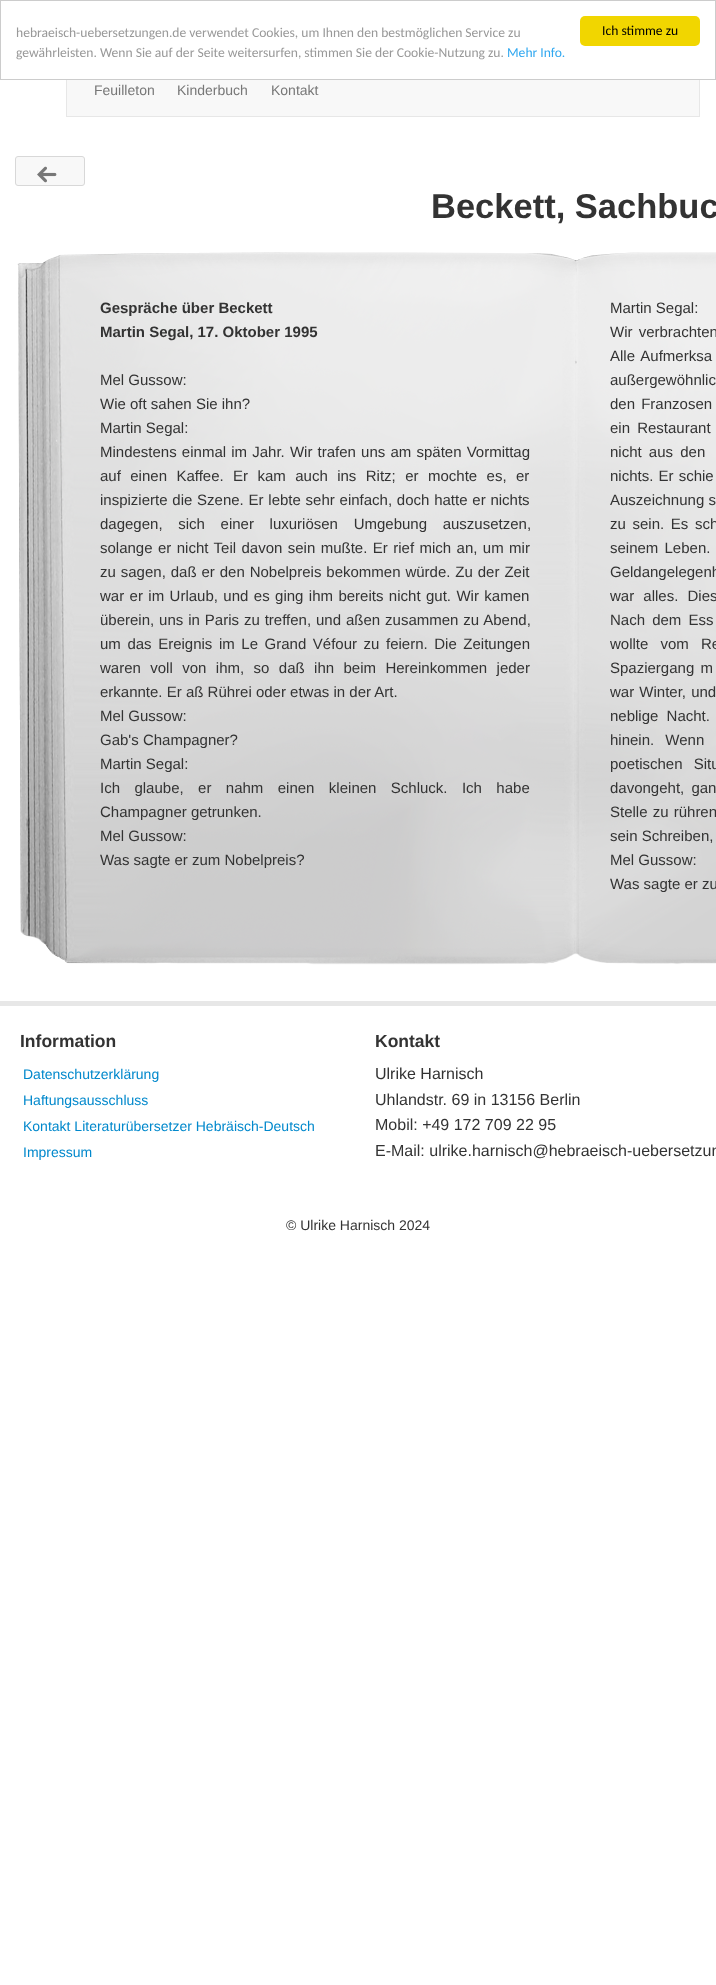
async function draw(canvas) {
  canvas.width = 716
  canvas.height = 1985
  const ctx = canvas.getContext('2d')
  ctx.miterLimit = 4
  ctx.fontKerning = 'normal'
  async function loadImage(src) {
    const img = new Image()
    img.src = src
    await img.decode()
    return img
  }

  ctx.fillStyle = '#fff'
  ctx.fillRect(0, 0, 716, 1985)
  ctx.fillStyle = '#f8f8f8'
  ctx.fillRect(67, 80, 632, 36)
  ctx.strokeStyle = '#e7e7e7'
  ctx.strokeRect(66.5, 21.5, 633, 95)
  ctx.fillStyle = '#fff'
  ctx.fillRect(66, 21, 634, 58)
  ctx.strokeStyle = '#ccc'
  ctx.strokeRect(0.5, 0.5, 715, 79)
  ctx.font = '13.6px Carlito'
  ctx.fillStyle = '#999'
  ctx.fillText('hebraeisch-uebersetzungen.de verwendet Cookies, um Ihnen den bestmöglichen Service zu', 16, 37)
  ctx.fillText('gewährleisten. Wenn Sie auf der Seite weitersurfen, stimmen Sie der Cookie-Nutzung zu.', 16, 57)
  ctx.fillStyle = '#31a8f0'
  ctx.fillText('Mehr Info.', 507, 57)
  ctx.fillStyle = '#f1d600'
  ctx.beginPath()
  ctx.roundRect(580, 16, 120, 30, 5)
  ctx.fill()
  ctx.fillStyle = '#000'
  ctx.fillText('Ich stimme zu', 602, 35)
  ctx.font = '14px Liberation Sans'
  ctx.fillStyle = '#777'
  ctx.fillText('Feuilleton', 94, 95)
  ctx.fillText('Kinderbuch', 177, 95)
  ctx.fillText('Kontakt', 271, 95)
  ctx.fillStyle = '#f8f8f8'
  ctx.beginPath()
  ctx.roundRect(15.5, 156.5, 69, 29, 2.5)
  ctx.fill()
  ctx.strokeStyle = '#d8d8d8'
  ctx.stroke()
  ctx.drawImage(await loadImage('image0.png'), 37, 166, 20, 17)
  ctx.font = 'bold 34.5px Liberation Sans'
  ctx.fillStyle = '#333'
  ctx.fillText('Beckett, Sachbuc', 431, 218)
  ctx.drawImage(await loadImage('image1.png'), 17, 252, 699, 713)
  ctx.font = 'bold 15px Liberation Sans'
  ctx.fillText('Gespräche über Beckett', 100, 313)
  ctx.fillText('Martin Segal, 17. Oktober 1995', 100, 337)
  ctx.font = '15px Liberation Sans'
  ctx.fillText('Mel Gussow:', 100, 385)
  ctx.fillText('Wie oft sahen Sie ihn?', 100, 409)
  ctx.fillText('Martin Segal:', 100, 433)
  ctx.wordSpacing = '1px'
  ctx.fillText('Mindestens einmal im Jahr. Wir trafen uns am späten Vormittag', 100, 457)
  ctx.wordSpacing = '5.25px'
  ctx.fillText('auf einen Kaffee. Er kam auch ins Ritz; er mochte es, er', 100, 481)
  ctx.wordSpacing = '0.6px'
  ctx.fillText('inspizierte die Szene. Er lebte sehr einfach, doch hatte er nichts', 100, 505)
  ctx.wordSpacing = '11.5px'
  ctx.fillText('dagegen, sich einer luxuriösen Umgebung auszusetzen,', 100, 529)
  ctx.wordSpacing = '1.25px'
  ctx.fillText('solange er nicht Teil davon sein mußte. Er rief mich an, um mir', 100, 553)
  ctx.wordSpacing = '0.75px'
  ctx.fillText('zu sagen, daß er den Nobelpreis bekommen würde. Zu der Zeit', 100, 577)
  ctx.wordSpacing = '1.25px'
  ctx.fillText('war er im Urlaub, und es ging ihm bereits nicht gut. Wir kamen', 100, 601)
  ctx.wordSpacing = '0.75px'
  ctx.fillText('überein, uns in Paris zu treffen, und aßen zusammen zu Abend,', 100, 625)
  ctx.wordSpacing = '2.4px'
  ctx.fillText('um das Ereignis im Le Grand Véfour zu feiern. Die Zeitungen', 100, 649)
  ctx.wordSpacing = '5.25px'
  ctx.fillText('waren voll von ihm, so daß ihn beim Hereinkommen jeder', 100, 673)
  ctx.wordSpacing = '0px'
  ctx.fillText('erkannte. Er aß Rührei oder etwas in der Art.', 100, 697)
  ctx.fillText('Mel Gussow:', 100, 721)
  ctx.fillText('Gab\'s Champagner?', 100, 745)
  ctx.fillText('Martin Segal:', 100, 769)
  ctx.wordSpacing = '10.25px'
  ctx.fillText('Ich glaube, er nahm einen kleinen Schluck. Ich habe', 100, 793)
  ctx.wordSpacing = '0px'
  ctx.fillText('Champagner getrunken.', 100, 817)
  ctx.fillText('Mel Gussow:', 100, 841)
  ctx.fillText('Was sagte er zum Nobelpreis?', 100, 865)
  ctx.fillText('Martin Segal:', 610, 313)
  ctx.wordSpacing = '2px'
  ctx.fillText('Wir verbrachten', 610, 337)
  ctx.fillText('Alle Aufmerksa', 610, 361)
  ctx.wordSpacing = '1px'
  ctx.fillText('außergewöhnlic', 610, 385)
  ctx.wordSpacing = '2px'
  ctx.fillText('den Franzosen', 610, 409)
  ctx.wordSpacing = '3px'
  ctx.fillText('ein Restaurant', 610, 433)
  ctx.fillText('nicht aus den', 610, 457)
  ctx.wordSpacing = '1px'
  ctx.fillText('nichts. Er schie', 610, 481)
  ctx.wordSpacing = '0px'
  ctx.fillText('Auszeichnung s', 610, 505)
  ctx.wordSpacing = '2.5px'
  ctx.fillText('zu sein. Es sch', 610, 529)
  ctx.wordSpacing = '2px'
  ctx.fillText('seinem Leben.', 610, 553)
  ctx.wordSpacing = '3px'
  ctx.fillText('Geldangelegenh', 610, 577)
  ctx.wordSpacing = '5px'
  ctx.fillText('war alles. Dies', 610, 601)
  ctx.wordSpacing = '3px'
  ctx.fillText('Nach dem Ess', 610, 625)
  ctx.wordSpacing = '8px'
  ctx.fillText('wollte vom Re', 610, 649)
  ctx.wordSpacing = '2px'
  ctx.fillText('Spaziergang m', 610, 673)
  ctx.wordSpacing = '1px'
  ctx.fillText('war Winter, und', 610, 697)
  ctx.wordSpacing = '4px'
  ctx.fillText('neblige Nacht.', 610, 721)
  ctx.wordSpacing = '7px'
  ctx.fillText('hinein. Wenn', 610, 745)
  ctx.fillText('poetischen Situ', 610, 769)
  ctx.wordSpacing = '3px'
  ctx.fillText('davongeht, gan', 610, 793)
  ctx.wordSpacing = '1px'
  ctx.fillText('Stelle zu rühren', 610, 817)
  ctx.wordSpacing = '0px'
  ctx.fillText('sein Schreiben,', 610, 841)
  ctx.fillText('Mel Gussow:', 610, 865)
  ctx.fillText('Was sagte er zu', 610, 889)
  ctx.fillStyle = '#e7e7e7'
  ctx.fillRect(0, 1001, 716, 5)
  ctx.font = 'bold 17.5px Liberation Sans'
  ctx.fillStyle = '#333'
  ctx.fillText('Information', 20, 1047)
  ctx.font = '14px Liberation Sans'
  ctx.fillStyle = '#08c'
  ctx.fillText('Datenschutzerklärung', 23, 1079)
  ctx.fillText('Haftungsausschluss', 23, 1105)
  ctx.fillText('Kontakt Literaturübersetzer Hebräisch-Deutsch', 23, 1131)
  ctx.fillText('Impressum', 23, 1157)
  ctx.font = 'bold 17.5px Liberation Sans'
  ctx.fillStyle = '#333'
  ctx.fillText('Kontakt', 375, 1047)
  ctx.font = '16px Liberation Sans'
  ctx.fillText('Ulrike Harnisch', 375, 1079)
  ctx.fillText('Uhlandstr. 69 in 13156 Berlin', 375, 1105)
  ctx.fillText('Mobil: +49 172 709 22 95', 375, 1130)
  ctx.fillText('E-Mail: ulrike.harnisch@hebraeisch-uebersetzun', 375, 1156)
  ctx.font = '14px Liberation Sans'
  ctx.fillText('© Ulrike Harnisch 2024', 286, 1230)
}

draw(document.querySelector('canvas'))
